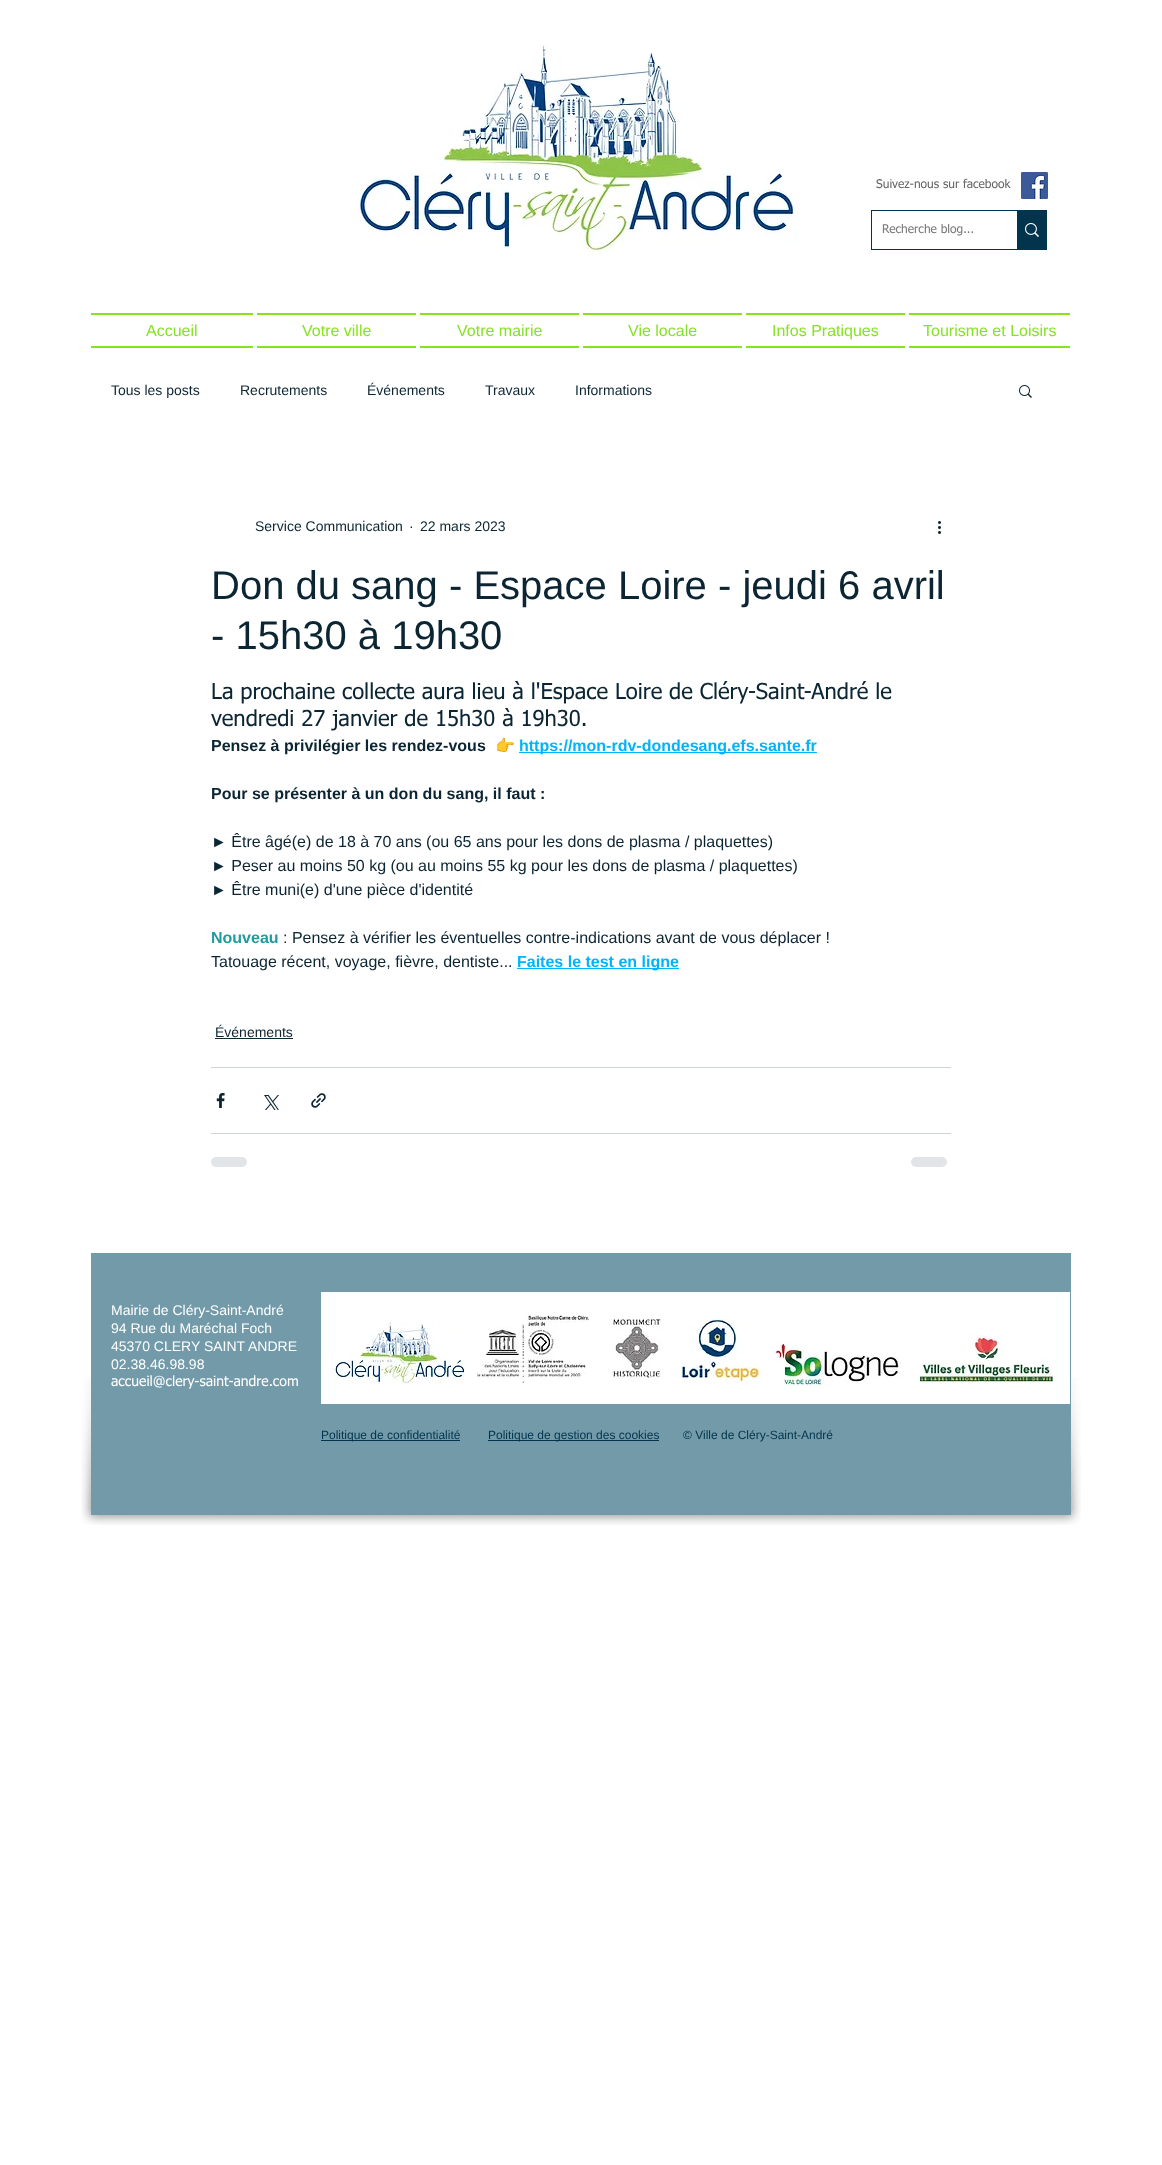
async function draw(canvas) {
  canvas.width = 1162
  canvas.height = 2165
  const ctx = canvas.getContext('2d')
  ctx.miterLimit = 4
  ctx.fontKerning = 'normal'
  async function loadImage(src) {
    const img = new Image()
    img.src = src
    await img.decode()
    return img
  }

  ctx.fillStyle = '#fff'
  ctx.fillRect(0, 0, 1162, 2165)
  ctx.drawImage(await loadImage('image0.png'), 359, 45, 440, 209)
  ctx.font = '12px tahoma'
  ctx.fillStyle = '#666'
  ctx.fillText('Suivez-nous sur facebook', 876, 188)
  ctx.drawImage(await loadImage('image1.png'), 1021, 172, 27, 27)
  ctx.strokeStyle = '#02354d'
  ctx.strokeRect(871.5, 210.5, 175, 39)
  ctx.fillStyle = '#787878'
  ctx.fillText('Recherche blog...', 882, 233)
  ctx.fillStyle = '#02354d'
  ctx.fillRect(1017, 211, 29, 38)
  ctx.drawImage(await loadImage('image2.png'), 1025, 223, 14, 14)
  ctx.fillStyle = '#88e224'
  ctx.fillRect(91, 313, 162, 2)
  ctx.fillRect(91, 346, 162, 2)
  ctx.font = '16px Liberation Sans'
  ctx.fillText('Accueil', 146, 336)
  ctx.fillRect(257, 313, 159, 2)
  ctx.fillRect(257, 346, 159, 2)
  ctx.fillText('Votre ville', 302, 336)
  ctx.fillRect(420, 313, 159, 2)
  ctx.fillRect(420, 346, 159, 2)
  ctx.fillText('Votre mairie', 457, 336)
  ctx.fillRect(583, 313, 159, 2)
  ctx.fillRect(583, 346, 159, 2)
  ctx.fillText('Vie locale', 628, 336)
  ctx.fillRect(746, 313, 159, 2)
  ctx.fillRect(746, 346, 159, 2)
  ctx.fillText('Infos Pratiques', 772, 336)
  ctx.fillRect(909, 313, 161, 2)
  ctx.fillRect(909, 346, 161, 2)
  ctx.fillText('Tourisme et Loisirs', 923, 336)
  ctx.font = '14px Liberation Sans'
  ctx.fillStyle = '#0b2533'
  ctx.fillText('Tous les posts', 111, 395)
  ctx.fillText('Recrutements', 240, 395)
  ctx.fillText('Événements', 367, 395)
  ctx.fillText('Travaux', 485, 395)
  ctx.fillText('Informations', 575, 395)
  ctx.drawImage(await loadImage('image3.png'), 1019, 385, 13, 13)
  ctx.fillText('Service Communication', 255, 531)
  ctx.fillText('·', 409, 531)
  ctx.fillText('22 mars 2023', 420, 531)
  ctx.drawImage(await loadImage('image4.png'), 938, 521, 3, 13)
  ctx.font = '40px Liberation Sans'
  ctx.fillText('Don du sang - Espace Loire - jeudi 6 avril', 211, 599)
  ctx.fillText('- 15h30 à 19h30', 211, 649)
  ctx.font = '22px tahoma'
  ctx.fillText('La prochaine collecte aura lieu à l\'Espace Loire de Cléry-Saint-André le', 211, 699)
  ctx.fillText('vendredi 27 janvier de 15h30 à 19h30.', 211, 726)
  ctx.font = 'bold 16px Liberation Sans'
  ctx.fillText('Pensez à privilégier les rendez-vous', 211, 751)
  ctx.font = 'bold 16px Noto Color Emoji'
  ctx.fillText('👉', 495, 751)
  ctx.fillStyle = '#00b4fb'
  ctx.fillRect(519, 752, 298, 1)
  ctx.font = 'bold 16px Liberation Sans'
  ctx.fillText('https://mon-rdv-dondesang.efs.sante.fr', 519, 751)
  ctx.fillStyle = '#0b2533'
  ctx.fillText('Pour se présenter à un don du sang, il faut :', 211, 799)
  ctx.font = '16px Liberation Sans'
  ctx.fillText('► Être âgé(e) de 18 à 70 ans (ou 65 ans pour les dons de plasma / plaquettes)', 211, 847)
  ctx.fillText('► Peser au moins 50 kg (ou au moins 55 kg pour les dons de plasma / plaquettes)', 211, 871)
  ctx.fillText('► Être muni(e) d\'une pièce d\'identité', 211, 895)
  ctx.font = 'bold 16px Liberation Sans'
  ctx.fillStyle = '#1f9c9c'
  ctx.fillText('Nouveau', 211, 943)
  ctx.font = '16px Liberation Sans'
  ctx.fillStyle = '#0b2533'
  ctx.fillText(': Pensez à vérifier les éventuelles contre-indications avant de vous déplacer !', 283, 943)
  ctx.fillText('Tatouage récent, voyage, fièvre, dentiste...', 211, 967)
  ctx.fillStyle = '#00b4fb'
  ctx.fillRect(517, 968, 162, 1)
  ctx.font = 'bold 16px Liberation Sans'
  ctx.fillText('Faites le test en ligne', 517, 967)
  ctx.font = '14px Liberation Sans'
  ctx.fillStyle = '#0b2533'
  ctx.fillText('Événements', 215, 1037)
  ctx.fillRect(215, 1038, 78, 1)
  ctx.fillStyle = '#ced3d6'
  ctx.fillRect(211, 1067, 740, 1)
  ctx.drawImage(await loadImage('image5.png'), 216, 1093, 9, 15)
  ctx.drawImage(await loadImage('image6.png'), 264, 1095, 15, 15)
  ctx.drawImage(await loadImage('image7.png'), 311, 1093, 15, 15)
  ctx.fillRect(211, 1133, 740, 1)
  ctx.fillStyle = '#e2e5e7'
  ctx.beginPath()
  ctx.roundRect(211, 1157, 36, 10, 5)
  ctx.fill()
  ctx.beginPath()
  ctx.roundRect(911, 1157, 36, 10, 5)
  ctx.fill()
  ctx.drawImage(await loadImage('image8.png'), 81, 1377, 45, 148)
  ctx.drawImage(await loadImage('image10.png'), 1036, 1377, 45, 148)
  ctx.fillStyle = '#729aa9'
  ctx.fillRect(91, 1253, 980, 262)
  ctx.drawImage(await loadImage('image9.png'), 126, 1515, 910, 10)
  ctx.fillStyle = '#fff'
  ctx.fillText('Mairie de Cléry-Saint-André', 111, 1315)
  ctx.fillText('94 Rue du Maréchal Foch', 111, 1333)
  ctx.fillText('45370 CLERY SAINT ANDRE', 111, 1351)
  ctx.fillText('02.38.46.98.98', 111, 1369)
  ctx.font = '14px tahoma'
  ctx.fillText('accueil@clery-saint-andre.com', 111, 1386)
  ctx.fillRect(321, 1292, 749, 112)
  ctx.drawImage(await loadImage('image11.png'), 332, 1320, 134, 64)
  ctx.drawImage(await loadImage('image12.png'), 477, 1315, 577, 73)
  ctx.fillStyle = '#02354d'
  ctx.fillRect(321, 1440, 139, 1)
  ctx.font = '12px Liberation Sans'
  ctx.fillText('Politique de confidentialité', 321, 1439)
  ctx.fillRect(488, 1440, 171, 1)
  ctx.fillText('Politique de gestion des cookies', 488, 1439)
  ctx.fillText('© Ville de Cléry-Saint-André', 683, 1439)
}

draw(document.querySelector('canvas'))
